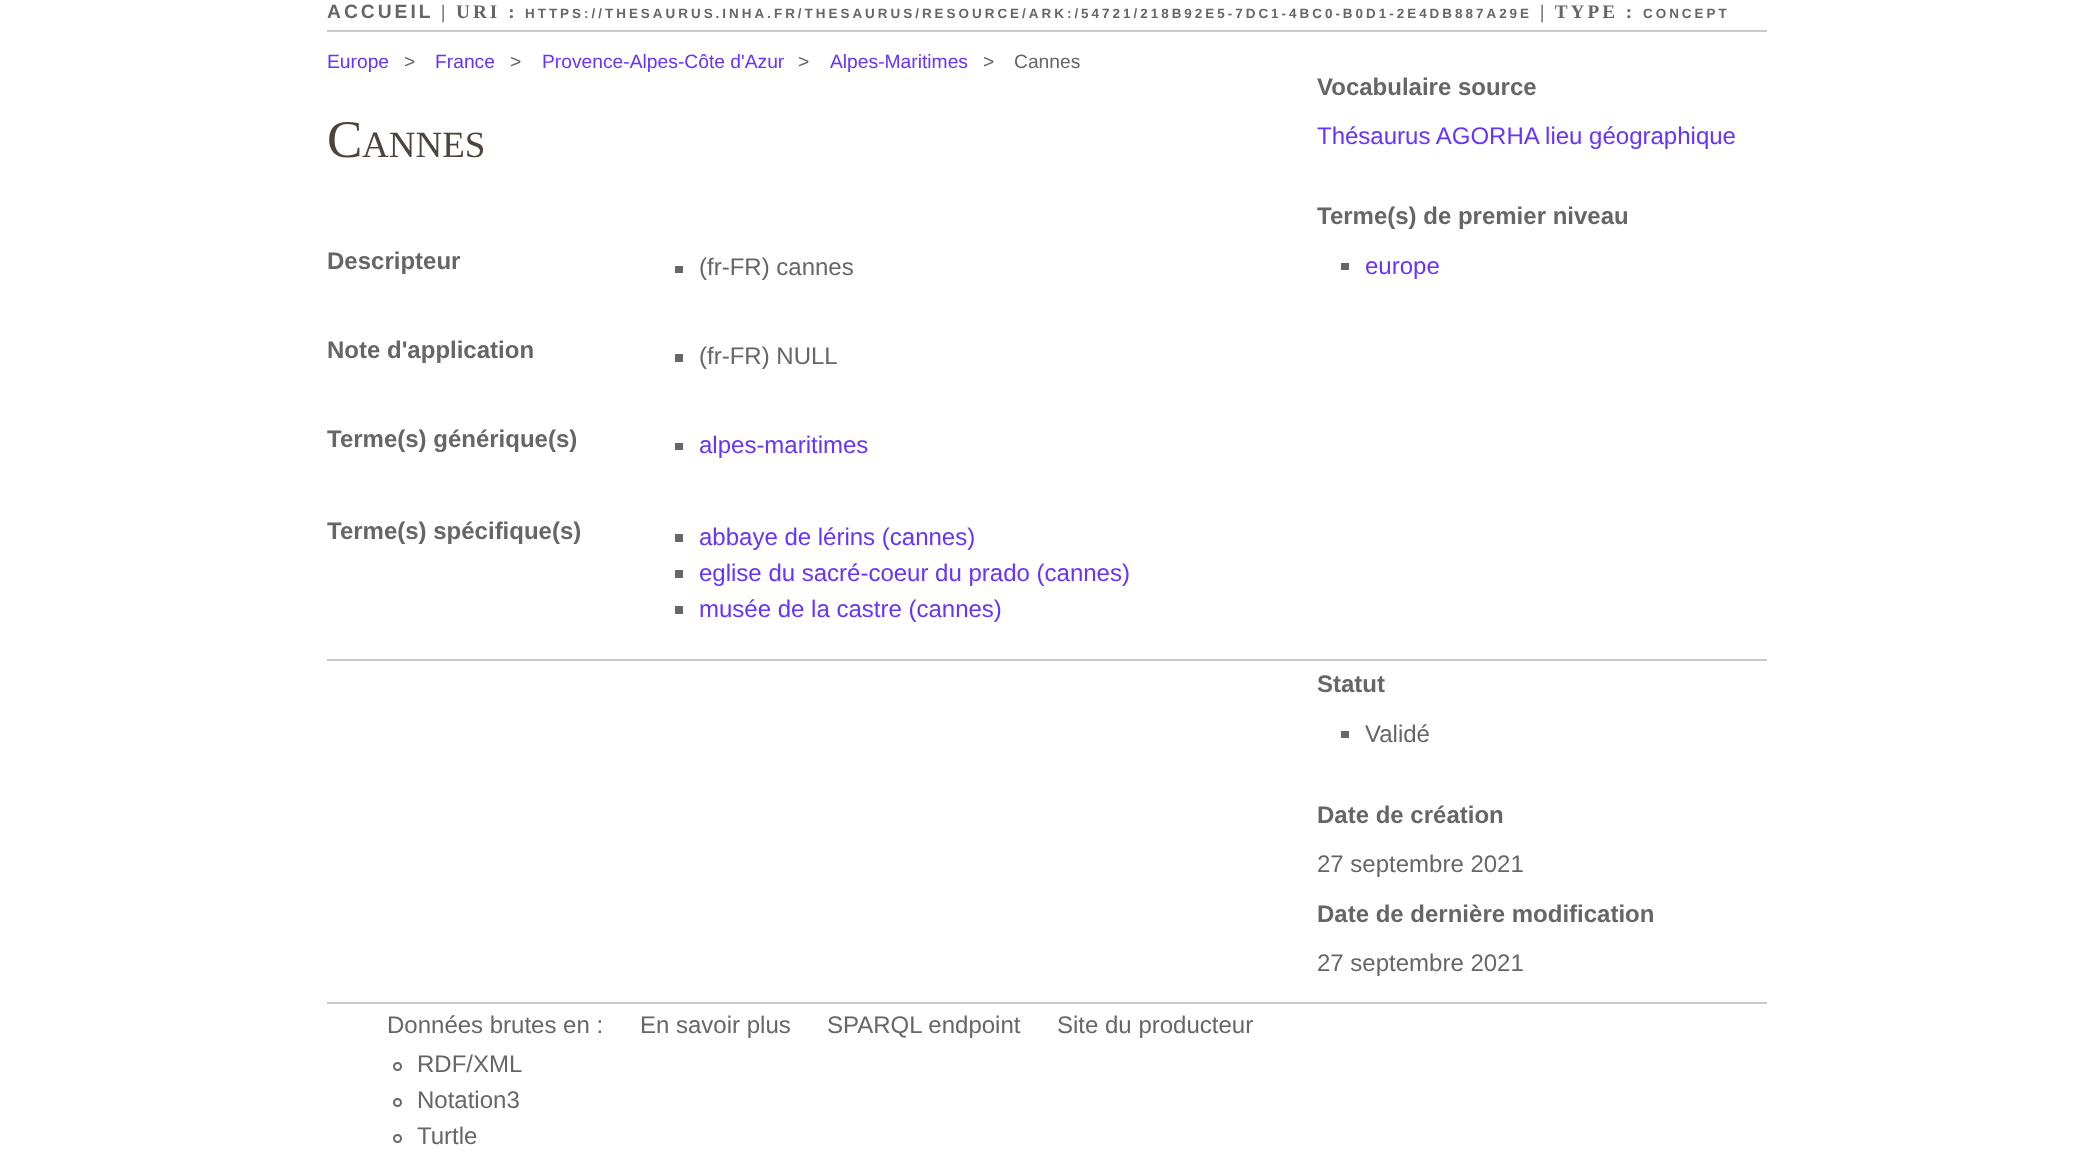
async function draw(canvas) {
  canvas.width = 2093
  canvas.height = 1163
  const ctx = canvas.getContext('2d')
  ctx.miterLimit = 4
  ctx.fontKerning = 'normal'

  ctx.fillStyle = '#fff'
  ctx.fillRect(0, 0, 2093, 1163)
  ctx.fillStyle = '#c9c9c9'
  ctx.fillRect(327, 30, 1440, 2)
  ctx.letterSpacing = '3px'
  ctx.font = 'bold 19.25px Liberation Sans'
  ctx.fillStyle = '#666'
  ctx.fillText('ACCUEIL', 327, 18)
  ctx.font = 'bold 19.25px Liberation Serif'
  ctx.fillText('| URI :', 441, 18)
  ctx.font = 'bold 13.45px Liberation Sans'
  ctx.fillText('HTTPS://THESAURUS.INHA.FR/THESAURUS/RESOURCE/ARK:/54721/218B92E5-7DC1-4BC0-B0D1-2E4DB887A29E', 525, 18)
  ctx.font = 'bold 19.25px Liberation Serif'
  ctx.fillText('| TYPE :', 1540, 18)
  ctx.font = 'bold 13.45px Liberation Sans'
  ctx.fillText('CONCEPT', 1643, 18)
  ctx.letterSpacing = '0px'
  ctx.font = '19.25px Liberation Sans'
  ctx.fillStyle = '#63f'
  ctx.fillText('Europe', 327, 68)
  ctx.fillStyle = '#666'
  ctx.fillText('>', 404, 68)
  ctx.fillStyle = '#63f'
  ctx.fillText('France', 435, 68)
  ctx.fillStyle = '#666'
  ctx.fillText('>', 510, 68)
  ctx.fillStyle = '#63f'
  ctx.fillText('Provence-Alpes-Côte d\'Azur', 542, 68)
  ctx.fillStyle = '#666'
  ctx.fillText('>', 798, 68)
  ctx.fillStyle = '#63f'
  ctx.fillText('Alpes-Maritimes', 830, 68)
  ctx.fillStyle = '#666'
  ctx.fillText('>', 983, 68)
  ctx.fillText('Cannes', 1014, 68)
  ctx.font = '53px Liberation Serif'
  ctx.fillStyle = '#4e443c'
  ctx.fillText('C', 327, 157)
  ctx.font = '37px Liberation Serif'
  ctx.fillText('ANNES', 362, 157)
  ctx.font = 'bold 24px Liberation Sans'
  ctx.fillStyle = '#666'
  ctx.fillText('Descripteur', 327, 269)
  ctx.fillRect(675, 266, 8, 7)
  ctx.font = '24px Liberation Sans'
  ctx.fillText('(fr-FR) cannes', 699, 275)
  ctx.font = 'bold 24px Liberation Sans'
  ctx.fillText('Note d\'application', 327, 358)
  ctx.fillRect(675, 354, 8, 8)
  ctx.font = '24px Liberation Sans'
  ctx.fillText('(fr-FR) NULL', 699, 364)
  ctx.font = 'bold 24px Liberation Sans'
  ctx.fillText('Terme(s) générique(s)', 327, 447)
  ctx.fillRect(675, 443, 8, 7)
  ctx.font = '24px Liberation Sans'
  ctx.fillStyle = '#63f'
  ctx.fillText('alpes-maritimes', 699, 453)
  ctx.font = 'bold 24px Liberation Sans'
  ctx.fillStyle = '#666'
  ctx.fillText('Terme(s) spécifique(s)', 327, 539)
  ctx.fillRect(675, 534, 8, 8)
  ctx.font = '24px Liberation Sans'
  ctx.fillStyle = '#63f'
  ctx.fillText('abbaye de lérins (cannes)', 699, 545)
  ctx.fillStyle = '#666'
  ctx.fillRect(675, 570, 8, 8)
  ctx.fillStyle = '#63f'
  ctx.fillText('eglise du sacré-coeur du prado (cannes)', 699, 581)
  ctx.fillStyle = '#666'
  ctx.fillRect(675, 606, 8, 8)
  ctx.fillStyle = '#63f'
  ctx.fillText('musée de la castre (cannes)', 699, 617)
  ctx.font = 'bold 24px Liberation Sans'
  ctx.fillStyle = '#666'
  ctx.fillText('Vocabulaire source', 1317, 95)
  ctx.font = '24px Liberation Sans'
  ctx.fillStyle = '#63f'
  ctx.fillText('Thésaurus AGORHA lieu géographique', 1317, 144)
  ctx.font = 'bold 24px Liberation Sans'
  ctx.fillStyle = '#666'
  ctx.fillText('Terme(s) de premier niveau', 1317, 224)
  ctx.fillRect(1341, 263, 8, 7)
  ctx.font = '24px Liberation Sans'
  ctx.fillStyle = '#63f'
  ctx.fillText('europe', 1365, 274)
  ctx.fillStyle = '#c9c9c9'
  ctx.fillRect(327, 659, 1440, 2)
  ctx.font = 'bold 24px Liberation Sans'
  ctx.fillStyle = '#666'
  ctx.fillText('Statut', 1317, 692)
  ctx.fillRect(1341, 731, 8, 7)
  ctx.font = '24px Liberation Sans'
  ctx.fillText('Validé', 1365, 742)
  ctx.font = 'bold 24px Liberation Sans'
  ctx.fillText('Date de création', 1317, 823)
  ctx.font = '24px Liberation Sans'
  ctx.fillText('27 septembre 2021', 1317, 872)
  ctx.font = 'bold 24px Liberation Sans'
  ctx.fillText('Date de dernière modification', 1317, 922)
  ctx.font = '24px Liberation Sans'
  ctx.fillText('27 septembre 2021', 1317, 971)
  ctx.fillStyle = '#c9c9c9'
  ctx.fillRect(327, 1002, 1440, 2)
  ctx.fillStyle = '#666'
  ctx.fillText('Données brutes en :', 387, 1033)
  ctx.beginPath()
  ctx.arc(397.5, 1066.5, 3.5, 0, 2 * Math.PI)
  ctx.strokeStyle = '#666'
  ctx.lineWidth = 2
  ctx.stroke()
  ctx.fillText('RDF/XML', 417, 1072)
  ctx.beginPath()
  ctx.arc(397.5, 1102.5, 3.5, 0, 2 * Math.PI)
  ctx.stroke()
  ctx.fillText('Notation3', 417, 1108)
  ctx.beginPath()
  ctx.arc(397.5, 1138.5, 3.5, 0, 2 * Math.PI)
  ctx.stroke()
  ctx.fillText('Turtle', 417, 1144)
  ctx.fillText('En savoir plus', 640, 1033)
  ctx.fillText('SPARQL endpoint', 827, 1033)
  ctx.fillText('Site du producteur', 1057, 1033)
}

draw(document.querySelector('canvas'))
